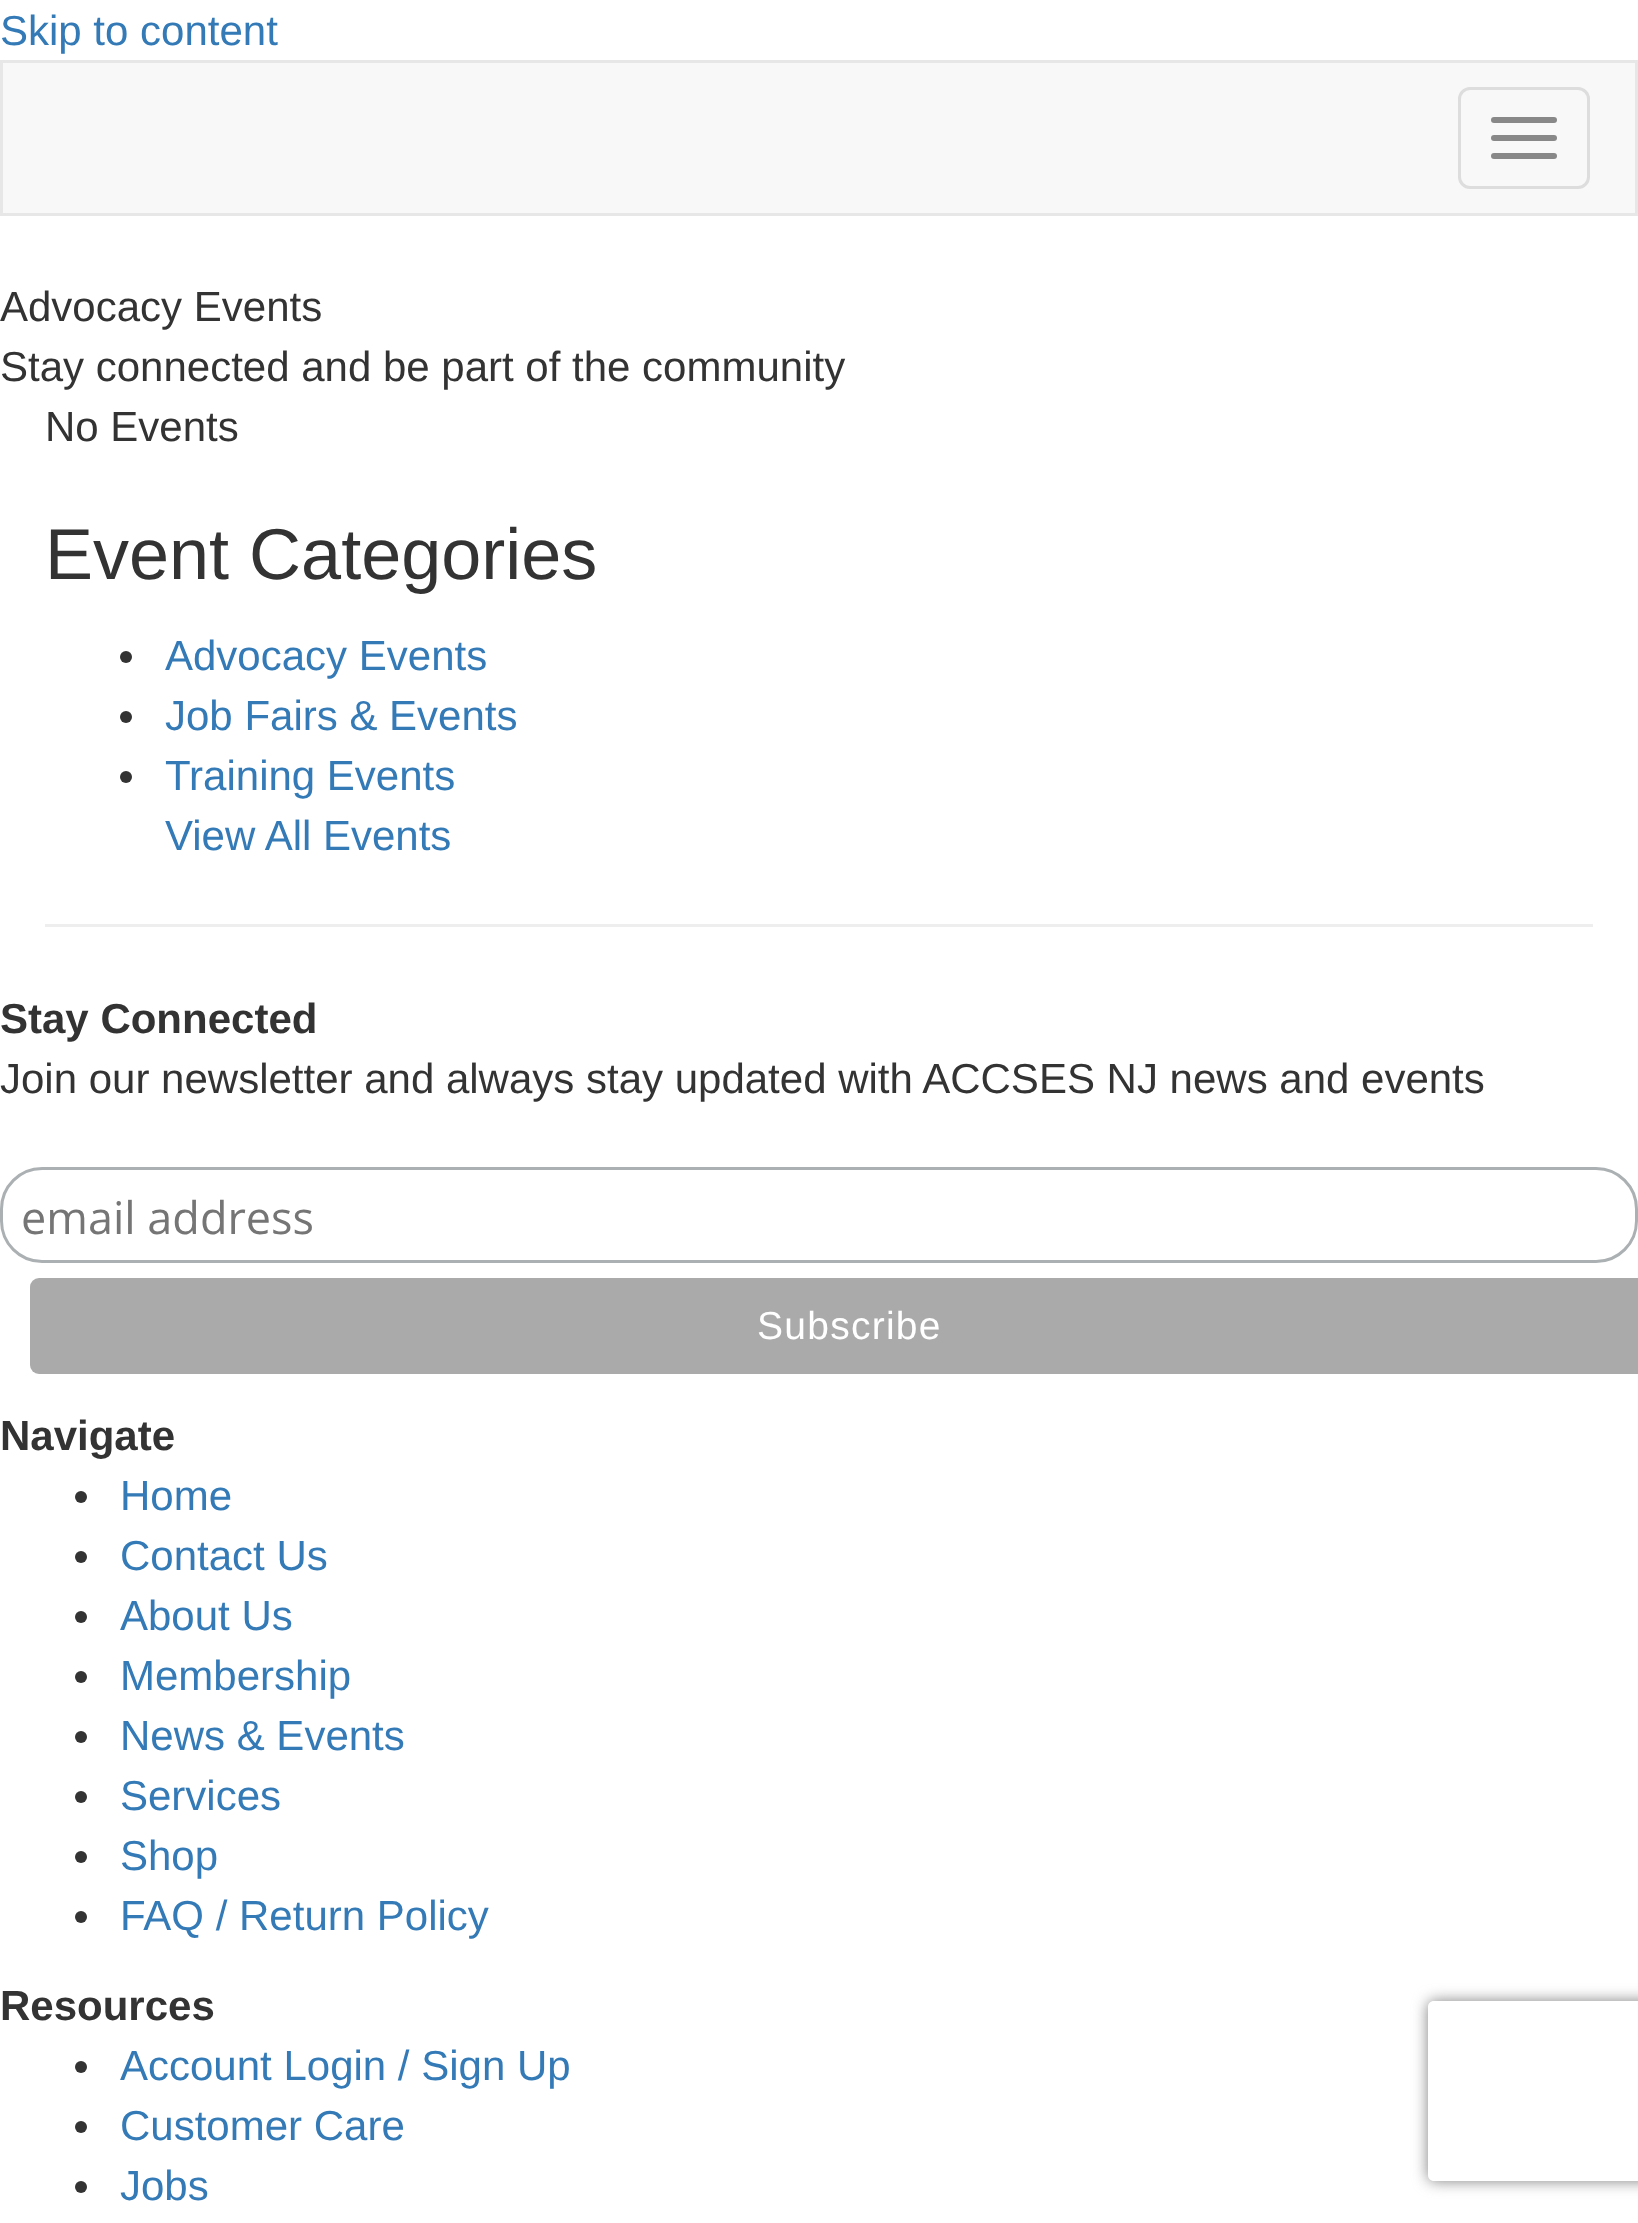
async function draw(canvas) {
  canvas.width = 1638
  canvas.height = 2223
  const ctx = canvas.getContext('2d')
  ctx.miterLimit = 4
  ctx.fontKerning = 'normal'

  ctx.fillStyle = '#fff'
  ctx.fillRect(0, 0, 1638, 2223)
  ctx.font = '42px Liberation Sans'
  ctx.fillStyle = '#337ab7'
  ctx.fillText('Skip to content', 0, 45)
  ctx.fillStyle = '#f8f8f8'
  ctx.beginPath()
  ctx.rect(1.5, 61.5, 1635, 153)
  ctx.fill()
  ctx.strokeStyle = '#e7e7e7'
  ctx.lineWidth = 3
  ctx.stroke()
  ctx.beginPath()
  ctx.roundRect(1459.5, 88.5, 129, 99, 10.5)
  ctx.strokeStyle = '#ddd'
  ctx.stroke()
  ctx.fillStyle = '#888'
  ctx.beginPath()
  ctx.roundRect(1491, 117, 66, 6, 3)
  ctx.fill()
  ctx.beginPath()
  ctx.roundRect(1491, 135, 66, 6, 3)
  ctx.fill()
  ctx.beginPath()
  ctx.roundRect(1491, 153, 66, 6, 3)
  ctx.fill()
  ctx.fillStyle = '#333'
  ctx.fillText('Advocacy Events', 0, 321)
  ctx.fillText('Stay connected and be part of the community', 0, 381)
  ctx.fillText('No Events', 45, 441)
  ctx.font = '72px Liberation Sans'
  ctx.fillText('Event Categories', 45, 579)
  ctx.beginPath()
  ctx.arc(126, 657, 6, 0, 2 * Math.PI)
  ctx.fill()
  ctx.font = '42px Liberation Sans'
  ctx.fillStyle = '#337ab7'
  ctx.fillText('Advocacy Events', 165, 670)
  ctx.fillStyle = '#333'
  ctx.beginPath()
  ctx.arc(126, 717, 6, 0, 2 * Math.PI)
  ctx.fill()
  ctx.fillStyle = '#337ab7'
  ctx.fillText('Job Fairs & Events', 165, 730)
  ctx.fillStyle = '#333'
  ctx.beginPath()
  ctx.arc(126, 777, 6, 0, 2 * Math.PI)
  ctx.fill()
  ctx.fillStyle = '#337ab7'
  ctx.fillText('Training Events', 165, 790)
  ctx.fillText('View All Events', 165, 850)
  ctx.fillStyle = '#eee'
  ctx.fillRect(45, 924, 1548, 3)
  ctx.font = 'bold 42px Liberation Sans'
  ctx.fillStyle = '#333'
  ctx.fillText('Stay Connected', 0, 1033)
  ctx.font = '42px Liberation Sans'
  ctx.fillText('Join our newsletter and always stay updated with ACCSES NJ news and events', 0, 1093)
  ctx.beginPath()
  ctx.roundRect(1.5, 1168.5, 1635, 93, 40.5)
  ctx.strokeStyle = '#abb0b2'
  ctx.stroke()
  ctx.font = '45px Open Sans'
  ctx.fillStyle = '#757575'
  ctx.fillText('email address', 21, 1234)
  ctx.fillStyle = '#aaa'
  ctx.beginPath()
  ctx.roundRect(30, 1278, 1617, 96, 9)
  ctx.fill()
  ctx.letterSpacing = '1.25px'
  ctx.font = '39px Liberation Sans'
  ctx.fillStyle = '#fff'
  ctx.fillText('Subscribe', 757, 1339)
  ctx.letterSpacing = '0px'
  ctx.font = 'bold 42px Liberation Sans'
  ctx.fillStyle = '#333'
  ctx.fillText('Navigate', 0, 1450)
  ctx.beginPath()
  ctx.arc(81, 1497, 6, 0, 2 * Math.PI)
  ctx.fill()
  ctx.font = '42px Liberation Sans'
  ctx.fillStyle = '#337ab7'
  ctx.fillText('Home', 120, 1510)
  ctx.fillStyle = '#333'
  ctx.beginPath()
  ctx.arc(81, 1557, 6, 0, 2 * Math.PI)
  ctx.fill()
  ctx.fillStyle = '#337ab7'
  ctx.fillText('Contact Us', 120, 1570)
  ctx.fillStyle = '#333'
  ctx.beginPath()
  ctx.arc(81, 1617, 6, 0, 2 * Math.PI)
  ctx.fill()
  ctx.fillStyle = '#337ab7'
  ctx.fillText('About Us', 120, 1630)
  ctx.fillStyle = '#333'
  ctx.beginPath()
  ctx.arc(81, 1677, 6, 0, 2 * Math.PI)
  ctx.fill()
  ctx.fillStyle = '#337ab7'
  ctx.fillText('Membership', 120, 1690)
  ctx.fillStyle = '#333'
  ctx.beginPath()
  ctx.arc(81, 1737, 6, 0, 2 * Math.PI)
  ctx.fill()
  ctx.fillStyle = '#337ab7'
  ctx.fillText('News & Events', 120, 1750)
  ctx.fillStyle = '#333'
  ctx.beginPath()
  ctx.arc(81, 1797, 6, 0, 2 * Math.PI)
  ctx.fill()
  ctx.fillStyle = '#337ab7'
  ctx.fillText('Services', 120, 1810)
  ctx.fillStyle = '#333'
  ctx.beginPath()
  ctx.arc(81, 1857, 6, 0, 2 * Math.PI)
  ctx.fill()
  ctx.fillStyle = '#337ab7'
  ctx.fillText('Shop', 120, 1870)
  ctx.fillStyle = '#333'
  ctx.beginPath()
  ctx.arc(81, 1917, 6, 0, 2 * Math.PI)
  ctx.fill()
  ctx.fillStyle = '#337ab7'
  ctx.fillText('FAQ / Return Policy', 120, 1930)
  ctx.font = 'bold 42px Liberation Sans'
  ctx.fillStyle = '#333'
  ctx.fillText('Resources', 0, 2020)
  ctx.beginPath()
  ctx.arc(81, 2067, 6, 0, 2 * Math.PI)
  ctx.fill()
  ctx.font = '42px Liberation Sans'
  ctx.fillStyle = '#337ab7'
  ctx.fillText('Account Login / Sign Up', 120, 2080)
  ctx.fillStyle = '#333'
  ctx.beginPath()
  ctx.arc(81, 2127, 6, 0, 2 * Math.PI)
  ctx.fill()
  ctx.fillStyle = '#337ab7'
  ctx.fillText('Customer Care', 120, 2140)
  ctx.fillStyle = '#333'
  ctx.beginPath()
  ctx.arc(81, 2187, 6, 0, 2 * Math.PI)
  ctx.fill()
  ctx.fillStyle = '#337ab7'
  ctx.fillText('Jobs', 120, 2200)
  ctx.save()
  ctx.beginPath()
  ctx.moveTo(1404, 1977)
  ctx.lineTo(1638, 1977)
  ctx.lineTo(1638, 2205)
  ctx.lineTo(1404, 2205)
  ctx.closePath()
  ctx.moveTo(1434, 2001)
  ctx.lineTo(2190, 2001)
  ctx.bezierCurveTo(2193.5, 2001, 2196, 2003.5, 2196, 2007)
  ctx.lineTo(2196, 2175)
  ctx.bezierCurveTo(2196, 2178.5, 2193.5, 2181, 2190, 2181)
  ctx.lineTo(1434, 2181)
  ctx.bezierCurveTo(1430.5, 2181, 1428, 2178.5, 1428, 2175)
  ctx.lineTo(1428, 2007)
  ctx.bezierCurveTo(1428, 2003.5, 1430.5, 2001, 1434, 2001)
  ctx.closePath()
  ctx.clip('evenodd')
  ctx.fillStyle = '#808080'
  ctx.filter = 'blur(7.5px)'
  ctx.beginPath()
  ctx.roundRect(1428, 2001, 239, 180, 6)
  ctx.fill()
  ctx.filter = 'none'
  ctx.restore()
}

draw(document.querySelector('canvas'))
